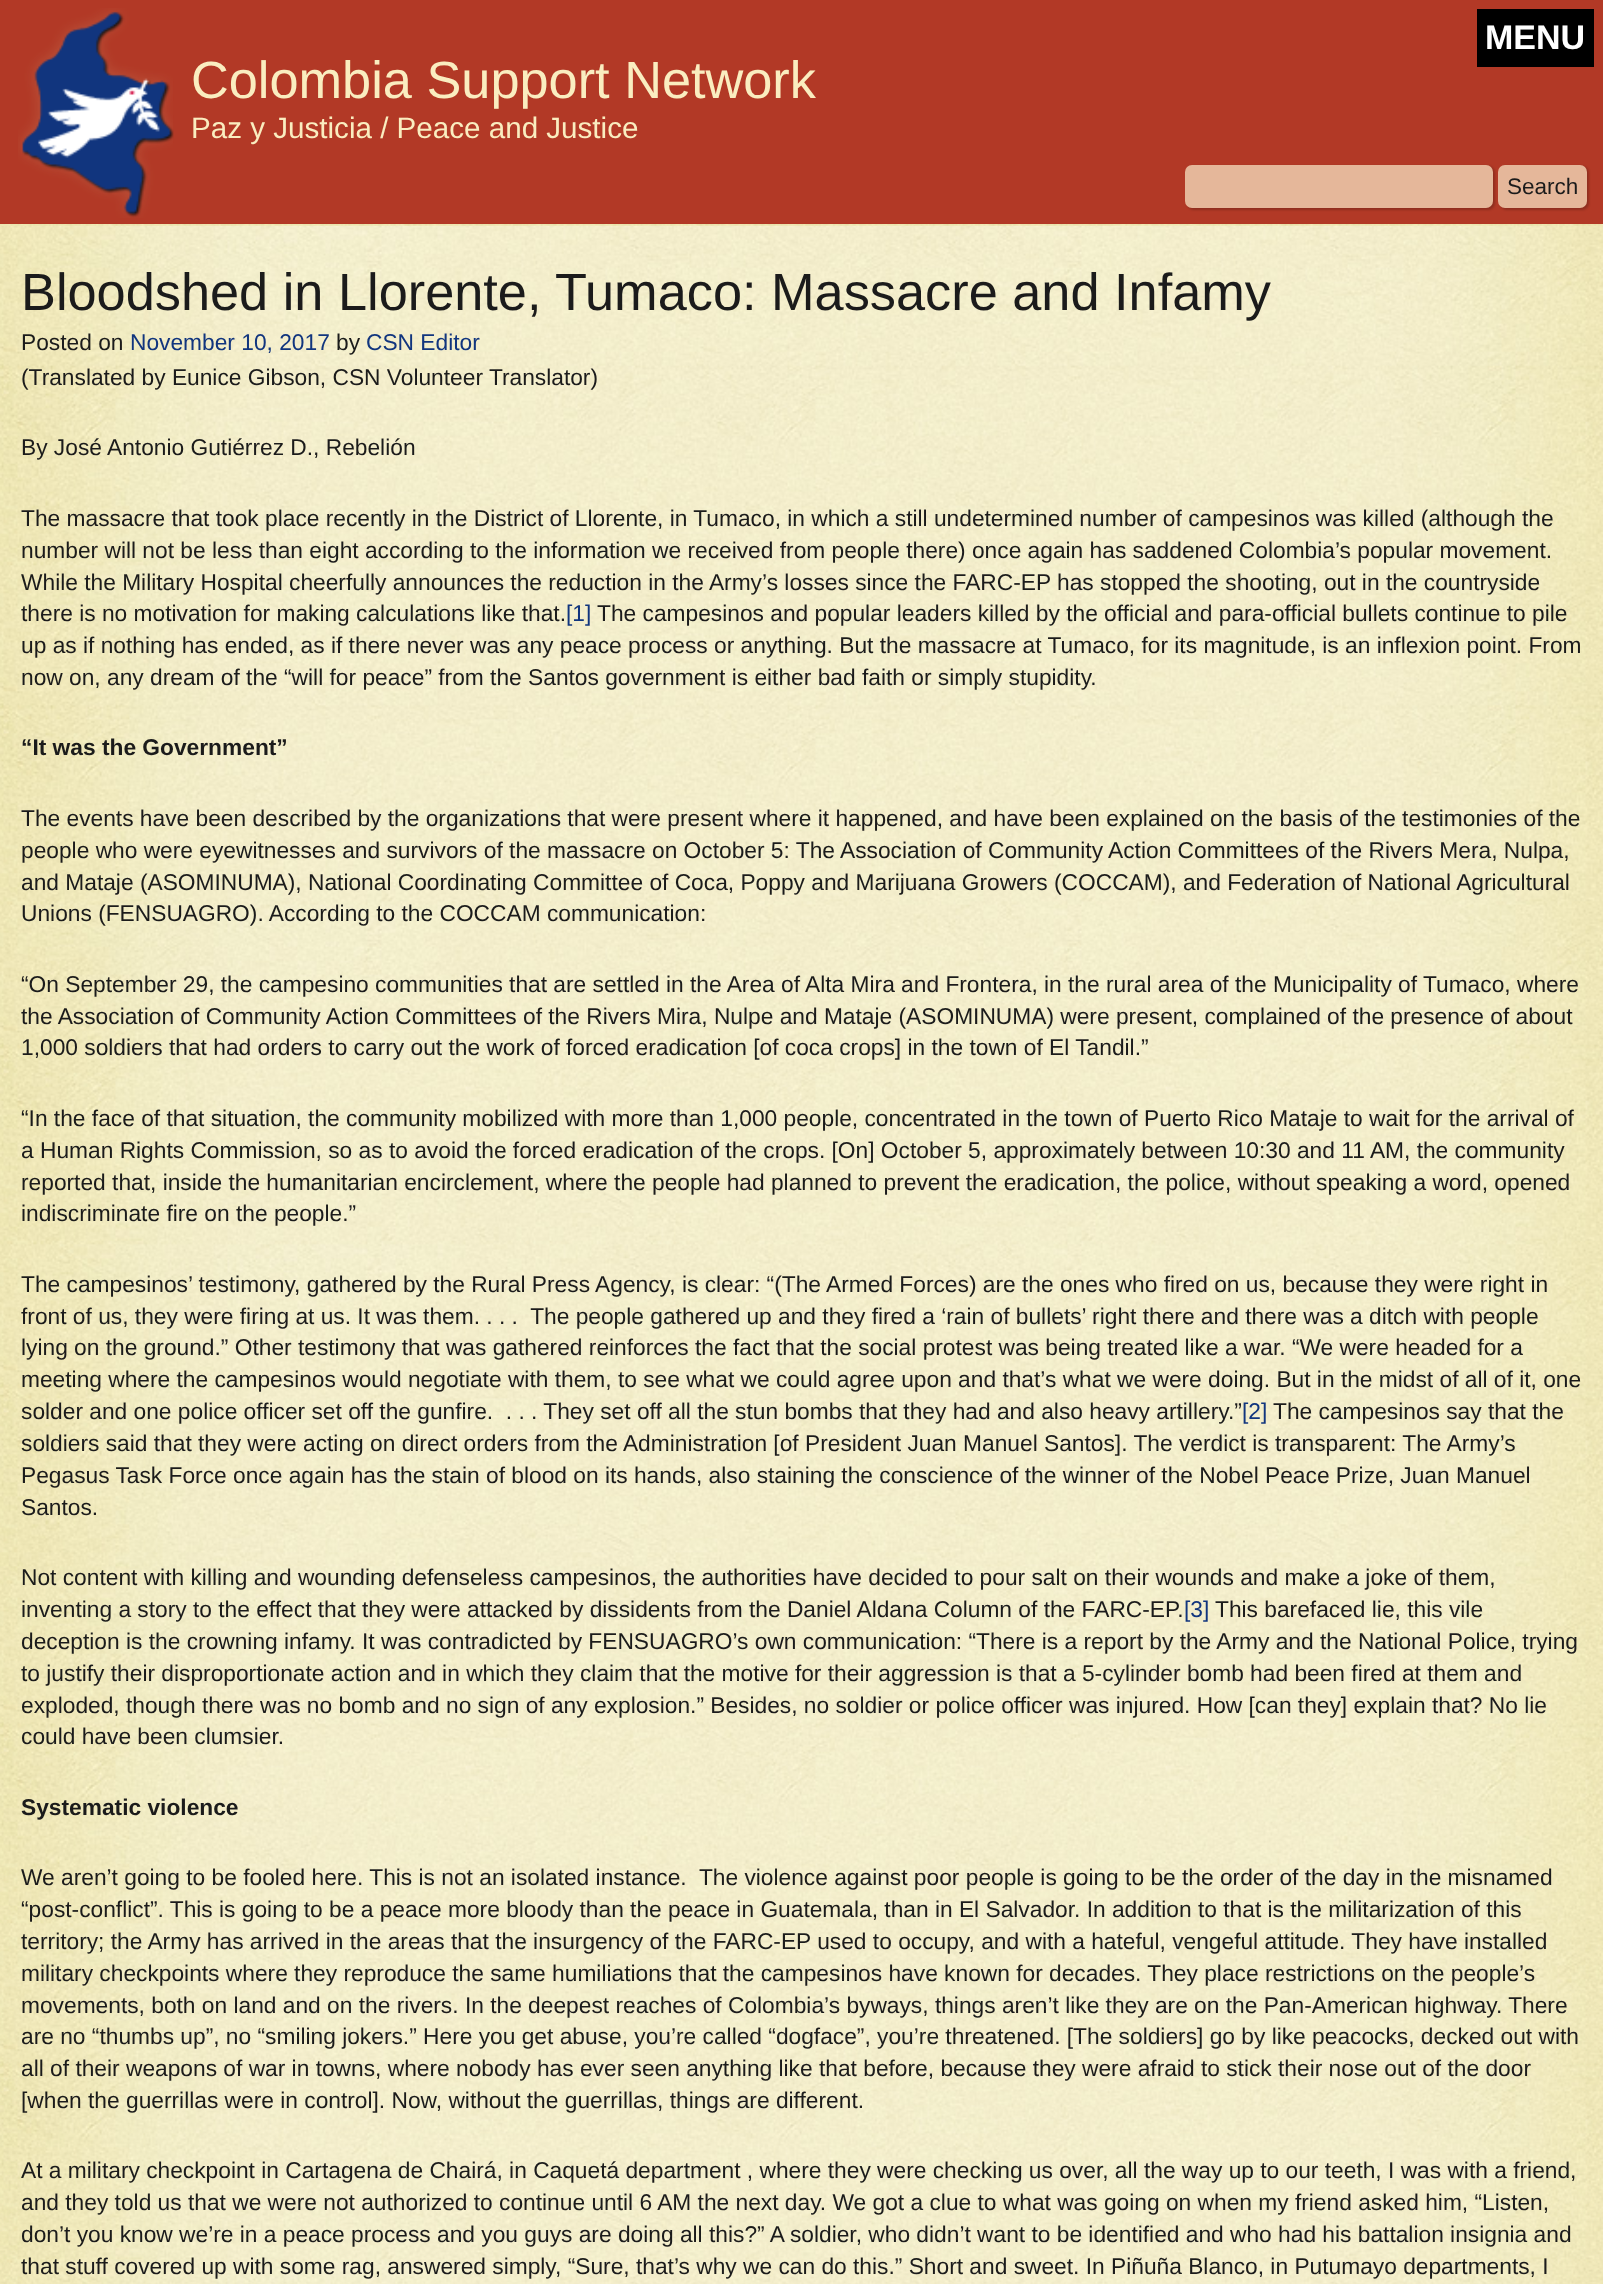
async function draw(canvas) {
  canvas.width = 1603
  canvas.height = 2284
  const ctx = canvas.getContext('2d')
  ctx.miterLimit = 4
  ctx.fontKerning = 'normal'
  async function loadImage(src) {
    const img = new Image()
    img.src = src
    await img.decode()
    return img
  }

  ctx.fillStyle = '#fff'
  ctx.fillRect(0, 0, 1603, 2284)
  ctx.drawImage(await loadImage('image0.png'), 0, 224, 1603, 2)
  ctx.fillStyle = '#b23926'
  ctx.fillRect(0, 0, 1603, 224)
  ctx.fillStyle = '#000'
  ctx.fillRect(1477, 9, 117, 58)
  ctx.font = 'bold 34px Liberation Sans'
  ctx.fillStyle = '#fff'
  ctx.fillText('MENU', 1485, 49)
  ctx.drawImage(await loadImage('image1.png'), 18, 8, 156, 210)
  ctx.font = '52.3px Liberation Sans'
  ctx.fillStyle = '#faedc0'
  ctx.fillText('Colombia Support Network', 191, 98)
  ctx.font = '29.6px Liberation Sans'
  ctx.fillText('Paz y Justicia / Peace and Justice', 191, 138)
  ctx.fillStyle = '#00000033'
  ctx.filter = 'blur(1px)'
  ctx.beginPath()
  ctx.roundRect(1187, 166, 308, 44, 7)
  ctx.fill()
  ctx.filter = 'none'
  ctx.fillStyle = '#e5b79a'
  ctx.beginPath()
  ctx.roundRect(1185, 165, 308, 43, 7)
  ctx.fill()
  ctx.fillStyle = '#00000033'
  ctx.filter = 'blur(1px)'
  ctx.beginPath()
  ctx.roundRect(1500, 166, 89, 44, 7)
  ctx.fill()
  ctx.filter = 'none'
  ctx.fillStyle = '#e5b79a'
  ctx.beginPath()
  ctx.roundRect(1498, 165, 89, 43, 7)
  ctx.fill()
  ctx.font = '22.5px Liberation Sans'
  ctx.fillStyle = '#1b1b1b'
  ctx.fillText('Search', 1507, 194)
  ctx.drawImage(await loadImage('image2.png'), 0, 225, 1603, 2059)
  ctx.font = '52.3px Liberation Sans'
  ctx.fillText('Bloodshed in Llorente, Tumaco: Massacre and Infamy', 21, 310)
  ctx.font = '22.75px Liberation Sans'
  ctx.fillText('Posted on', 21, 350)
  ctx.fillStyle = '#11357e'
  ctx.fillText('November 10, 2017', 130, 350)
  ctx.fillStyle = '#1b1b1b'
  ctx.fillText('by', 336, 350)
  ctx.fillStyle = '#11357e'
  ctx.fillText('CSN Editor', 366, 350)
  ctx.fillStyle = '#1b1b1b'
  ctx.fillText('(Translated by Eunice Gibson, CSN Volunteer Translator)', 21, 385)
  ctx.fillText('By José Antonio Gutiérrez D., Rebelión', 21, 455)
  ctx.fillText('The massacre that took place recently in the District of Llorente, in Tumaco, in which a still undetermined number of campesinos was killed (although the', 21, 526)
  ctx.fillText('number will not be less than eight according to the information we received from people there) once again has saddened Colombia’s popular movement.', 21, 558)
  ctx.fillText('While the Military Hospital cheerfully announces the reduction in the Army’s losses since the FARC-EP has stopped the shooting, out in the countryside', 21, 590)
  ctx.fillText('there is no motivation for making calculations like that.', 21, 621)
  ctx.fillStyle = '#11357e'
  ctx.fillText('[1]', 566, 621)
  ctx.fillStyle = '#1b1b1b'
  ctx.fillText('The campesinos and popular leaders killed by the official and para-official bullets continue to pile', 597, 621)
  ctx.fillText('up as if nothing has ended, as if there never was any peace process or anything. But the massacre at Tumaco, for its magnitude, is an inflexion point. From', 21, 653)
  ctx.fillText('now on, any dream of the “will for peace” from the Santos government is either bad faith or simply stupidity.', 21, 685)
  ctx.font = 'bold 22.75px Liberation Sans'
  ctx.fillText('“It was the Government”', 21, 755)
  ctx.font = '22.75px Liberation Sans'
  ctx.fillText('The events have been described by the organizations that were present where it happened, and have been explained on the basis of the testimonies of the', 21, 826)
  ctx.fillText('people who were eyewitnesses and survivors of the massacre on October 5: The Association of Community Action Committees of the Rivers Mera, Nulpa,', 21, 858)
  ctx.fillText('and Mataje (ASOMINUMA), National Coordinating Committee of Coca, Poppy and Marijuana Growers (COCCAM), and Federation of National Agricultural', 21, 890)
  ctx.fillText('Unions (FENSUAGRO). According to the COCCAM communication:', 21, 921)
  ctx.fillText('“On September 29, the campesino communities that are settled in the Area of Alta Mira and Frontera, in the rural area of the Municipality of Tumaco, where', 21, 992)
  ctx.fillText('the Association of Community Action Committees of the Rivers Mira, Nulpe and Mataje (ASOMINUMA) were present, complained of the presence of about', 21, 1024)
  ctx.fillText('1,000 soldiers that had orders to carry out the work of forced eradication [of coca crops] in the town of El Tandil.”', 21, 1055)
  ctx.fillText('“In the face of that situation, the community mobilized with more than 1,000 people, concentrated in the town of Puerto Rico Mataje to wait for the arrival of', 21, 1126)
  ctx.fillText('a Human Rights Commission, so as to avoid the forced eradication of the crops. [On] October 5, approximately between 10:30 and 11 AM, the community', 21, 1158)
  ctx.fillText('reported that, inside the humanitarian encirclement, where the people had planned to prevent the eradication, the police, without speaking a word, opened', 21, 1190)
  ctx.fillText('indiscriminate fire on the people.”', 21, 1221)
  ctx.fillText('The campesinos’ testimony, gathered by the Rural Press Agency, is clear: “(The Armed Forces) are the ones who fired on us, because they were right in', 21, 1292)
  ctx.fillText('front of us, they were firing at us. It was them. . . .  The people gathered up and they fired a ‘rain of bullets’ right there and there was a ditch with people', 21, 1324)
  ctx.fillText('lying on the ground.” Other testimony that was gathered reinforces the fact that the social protest was being treated like a war. “We were headed for a', 21, 1355)
  ctx.fillText('meeting where the campesinos would negotiate with them, to see what we could agree upon and that’s what we were doing. But in the midst of all of it, one', 21, 1387)
  ctx.fillText('solder and one police officer set off the gunfire.  . . . They set off all the stun bombs that they had and also heavy artillery.”', 21, 1419)
  ctx.fillStyle = '#11357e'
  ctx.fillText('[2]', 1242, 1419)
  ctx.fillStyle = '#1b1b1b'
  ctx.fillText('The campesinos say that the', 1273, 1419)
  ctx.fillText('soldiers said that they were acting on direct orders from the Administration [of President Juan Manuel Santos]. The verdict is transparent: The Army’s', 21, 1451)
  ctx.fillText('Pegasus Task Force once again has the stain of blood on its hands, also staining the conscience of the winner of the Nobel Peace Prize, Juan Manuel', 21, 1483)
  ctx.fillText('Santos.', 21, 1515)
  ctx.fillText('Not content with killing and wounding defenseless campesinos, the authorities have decided to pour salt on their wounds and make a joke of them,', 21, 1585)
  ctx.fillText('inventing a story to the effect that they were attacked by dissidents from the Daniel Aldana Column of the FARC-EP.', 21, 1617)
  ctx.fillStyle = '#11357e'
  ctx.fillText('[3]', 1184, 1617)
  ctx.fillStyle = '#1b1b1b'
  ctx.fillText('This barefaced lie, this vile', 1215, 1617)
  ctx.fillText('deception is the crowning infamy. It was contradicted by FENSUAGRO’s own communication: “There is a report by the Army and the National Police, trying', 21, 1649)
  ctx.fillText('to justify their disproportionate action and in which they claim that the motive for their aggression is that a 5-cylinder bomb had been fired at them and', 21, 1681)
  ctx.fillText('exploded, though there was no bomb and no sign of any explosion.” Besides, no soldier or police officer was injured. How [can they] explain that? No lie', 21, 1713)
  ctx.fillText('could have been clumsier.', 21, 1744)
  ctx.font = 'bold 22.75px Liberation Sans'
  ctx.fillText('Systematic violence', 21, 1815)
  ctx.font = '22.75px Liberation Sans'
  ctx.fillText('We aren’t going to be fooled here. This is not an isolated instance.  The violence against poor people is going to be the order of the day in the misnamed', 21, 1885)
  ctx.fillText('“post-conflict”. This is going to be a peace more bloody than the peace in Guatemala, than in El Salvador. In addition to that is the militarization of this', 21, 1917)
  ctx.fillText('territory; the Army has arrived in the areas that the insurgency of the FARC-EP used to occupy, and with a hateful, vengeful attitude. They have installed', 21, 1949)
  ctx.fillText('military checkpoints where they reproduce the same humiliations that the campesinos have known for decades. They place restrictions on the people’s', 21, 1981)
  ctx.fillText('movements, both on land and on the rivers. In the deepest reaches of Colombia’s byways, things aren’t like they are on the Pan-American highway. There', 21, 2013)
  ctx.fillText('are no “thumbs up”, no “smiling jokers.” Here you get abuse, you’re called “dogface”, you’re threatened. [The soldiers] go by like peacocks, decked out with', 21, 2044)
  ctx.fillText('all of their weapons of war in towns, where nobody has ever seen anything like that before, because they were afraid to stick their nose out of the door', 21, 2076)
  ctx.fillText('[when the guerrillas were in control]. Now, without the guerrillas, things are different.', 21, 2108)
  ctx.fillText('At a military checkpoint in Cartagena de Chairá, in Caquetá department , where they were checking us over, all the way up to our teeth, I was with a friend,', 21, 2178)
  ctx.fillText('and they told us that we were not authorized to continue until 6 AM the next day. We got a clue to what was going on when my friend asked him, “Listen,', 21, 2210)
  ctx.fillText('don’t you know we’re in a peace process and you guys are doing all this?” A soldier, who didn’t want to be identified and who had his battalion insignia and', 21, 2242)
  ctx.fillText('that stuff covered up with some rag, answered simply, “Sure, that’s why we can do this.” Short and sweet. In Piñuña Blanco, in Putumayo departments, I', 21, 2274)
}

draw(document.querySelector('canvas'))
